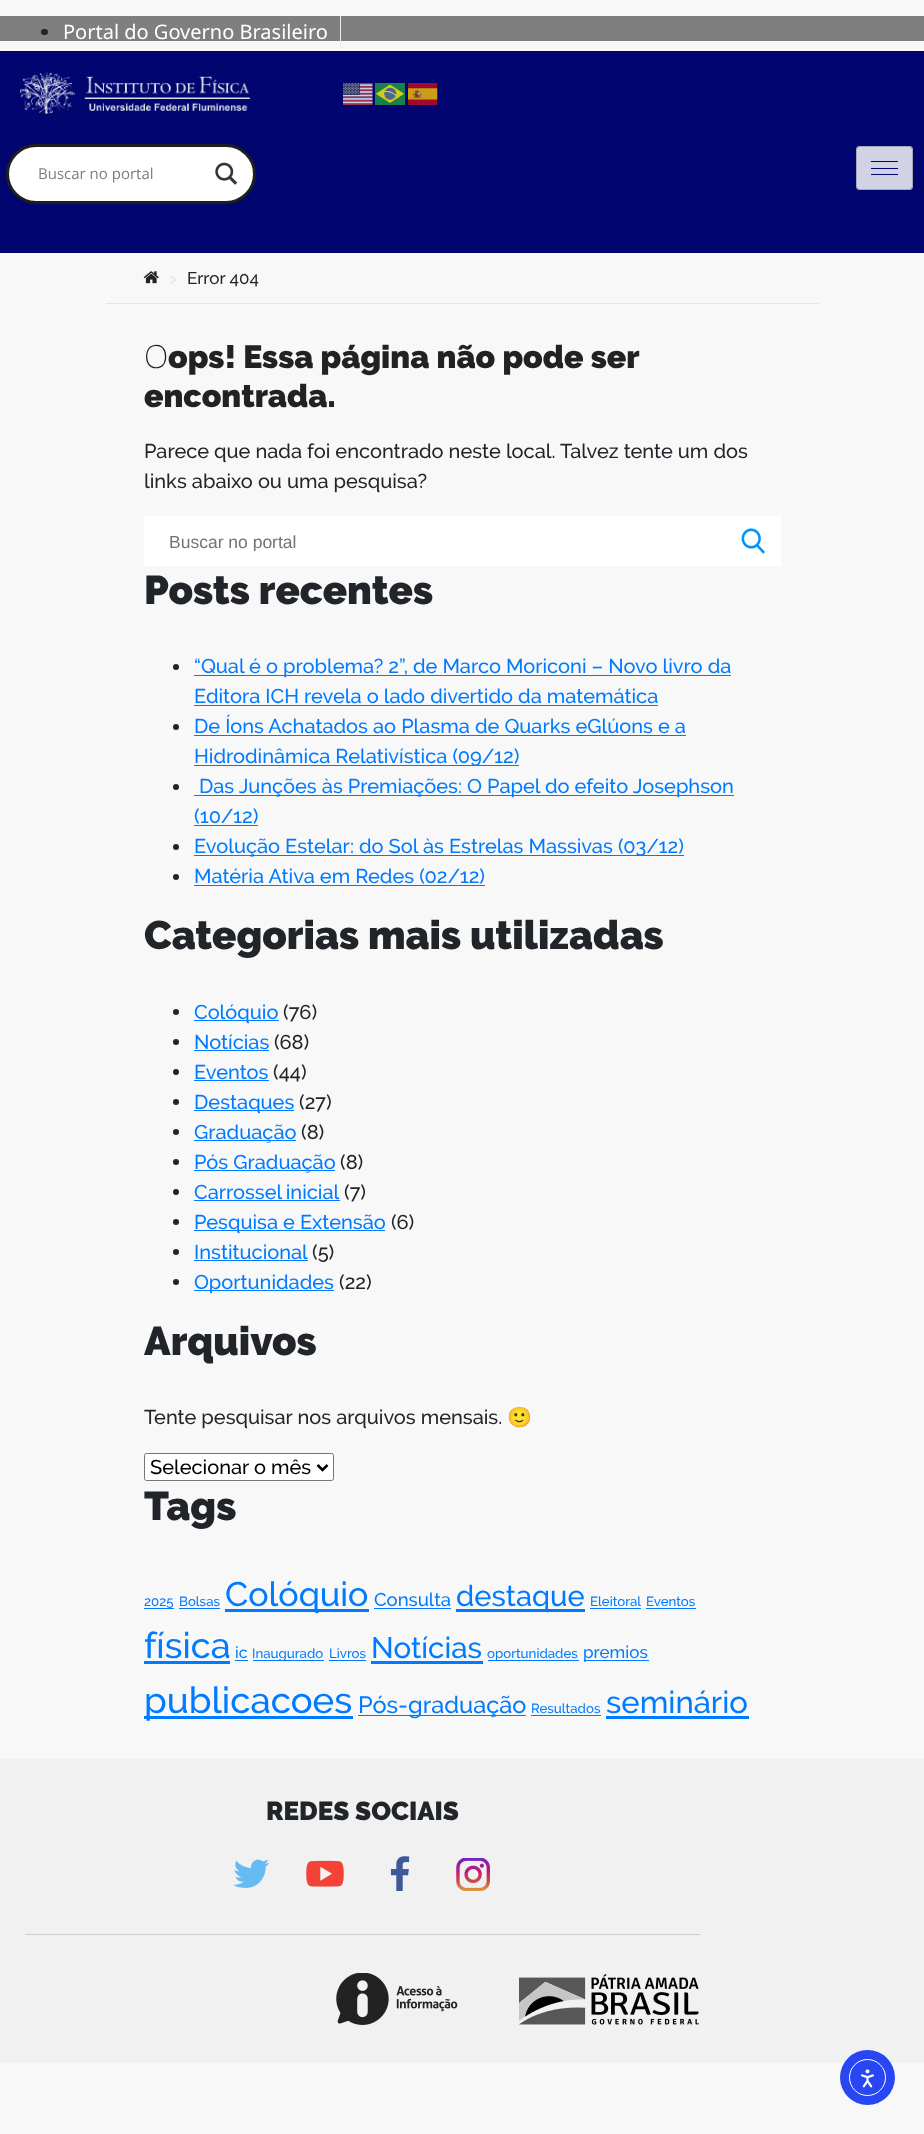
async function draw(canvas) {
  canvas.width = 924
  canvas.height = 2134
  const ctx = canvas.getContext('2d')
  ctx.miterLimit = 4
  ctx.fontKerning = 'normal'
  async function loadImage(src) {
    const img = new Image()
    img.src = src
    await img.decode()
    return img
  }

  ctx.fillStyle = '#f8f8f8'
  ctx.fillRect(0, 0, 924, 2134)
  ctx.fillStyle = '#7f7f7f'
  ctx.fillRect(0, 16, 924, 25)
  ctx.fillStyle = '#ededed'
  ctx.fillRect(340, 16, 1, 32)
  ctx.fillStyle = '#212529'
  ctx.beginPath()
  ctx.roundRect(41, 29, 7, 6, 3)
  ctx.fill()
  ctx.font = '20px Noto Sans'
  ctx.fillStyle = '#fff'
  ctx.fillText('Portal do Governo Brasileiro', 63, 39)
  ctx.fillStyle = '#00056f'
  ctx.fillRect(0, 51, 924, 202)
  ctx.drawImage(await loadImage('image0.png'), 20, 71, 230, 43)
  ctx.drawImage(await loadImage('image1.png'), 343, 83, 30, 22)
  ctx.drawImage(await loadImage('image2.png'), 375, 83, 30, 22)
  ctx.drawImage(await loadImage('image3.png'), 408, 83, 30, 22)
  ctx.fillStyle = '#fff'
  ctx.beginPath()
  ctx.roundRect(7.5, 145.5, 247, 57, 28.5)
  ctx.fill()
  ctx.strokeStyle = '#1e1e1e'
  ctx.lineWidth = 3
  ctx.stroke()
  ctx.font = '15px Open Sans'
  ctx.fillStyle = '#7d7d7d'
  ctx.fillText('Buscar no portal', 38, 179)
  ctx.drawImage(await loadImage('image4.png'), 215, 162, 23, 23)
  ctx.fillStyle = '#d1d2e5'
  ctx.beginPath()
  ctx.roundRect(856, 146, 57, 44, 4)
  ctx.fill()
  ctx.beginPath()
  ctx.roundRect(856.5, 146.5, 56, 43, 3.5)
  ctx.strokeStyle = '#00000033'
  ctx.lineWidth = 1
  ctx.stroke()
  ctx.fillStyle = '#00056f'
  ctx.fillRect(871, 161, 27, 1)
  ctx.fillRect(871, 168, 27, 1)
  ctx.fillRect(871, 174, 27, 1)
  ctx.drawImage(await loadImage('image5.png'), 143, 271, 16, 13)
  ctx.font = '500 16px Raleway'
  ctx.fillStyle = '#e5e5e5'
  ctx.fillText('>', 169, 284)
  ctx.font = '500 17px Raleway'
  ctx.fillStyle = '#212529'
  ctx.fillText('Error 404', 187, 284)
  ctx.fillStyle = '#e5e5e5'
  ctx.fillRect(106, 303, 713, 1)
  ctx.font = '200 32px Noto Sans'
  ctx.fillStyle = '#222'
  ctx.fillText('O', 144, 368)
  ctx.font = '900 32px Raleway'
  ctx.fillText('ops! Essa página não pode ser', 168, 368)
  ctx.fillText('encontrada.', 144, 407)
  ctx.font = '500 20px Raleway'
  ctx.fillStyle = '#212529'
  ctx.fillText('Parece que nada foi encontrado neste local. Talvez tente um dos', 144, 458)
  ctx.fillText('links abaixo ou uma pesquisa?', 144, 488)
  ctx.fillStyle = '#fff'
  ctx.fillRect(144, 516, 637, 50)
  ctx.save()
  ctx.beginPath()
  ctx.rect(169, 531, 557, 20)
  ctx.clip()
  ctx.font = '17.5px Liberation Sans'
  ctx.fillStyle = '#6c757d'
  ctx.fillText('Buscar no portal', 169, 548)
  ctx.restore()
  ctx.drawImage(await loadImage('image6.png'), 741, 528, 24, 26)
  ctx.font = '900 40px Raleway'
  ctx.fillStyle = '#212529'
  ctx.fillText('Posts recentes', 144, 604)
  ctx.beginPath()
  ctx.arc(176, 667, 3, 0, 2 * Math.PI)
  ctx.fill()
  ctx.fillStyle = '#007bff'
  ctx.fillRect(194, 675, 537, 1)
  ctx.font = '500 20px Raleway'
  ctx.fillText('“Qual é o problema? 2”, de Marco Moriconi – Novo livro da', 194, 673)
  ctx.fillText('Editora ICH revela o lado divertido da matemática', 194, 703)
  ctx.fillRect(194, 705, 464, 1)
  ctx.fillStyle = '#212529'
  ctx.beginPath()
  ctx.arc(176, 727, 3, 0, 2 * Math.PI)
  ctx.fill()
  ctx.fillStyle = '#007bff'
  ctx.fillText('De Íons Achatados ao Plasma de Quarks eGlúons e a', 194, 733)
  ctx.fillRect(194, 735, 492, 1)
  ctx.fillRect(194, 765, 325, 1)
  ctx.fillText('Hidrodinâmica Relativística (09/12)', 194, 763)
  ctx.fillStyle = '#212529'
  ctx.beginPath()
  ctx.arc(176, 787, 3, 0, 2 * Math.PI)
  ctx.fill()
  ctx.fillStyle = '#007bff'
  ctx.fillRect(194, 795, 540, 1)
  ctx.fillText('Das Junções às Premiações: O Papel do efeito Josephson', 199, 793)
  ctx.fillText('(10/12)', 194, 823)
  ctx.fillRect(194, 825, 64, 1)
  ctx.fillStyle = '#212529'
  ctx.beginPath()
  ctx.arc(176, 847, 3, 0, 2 * Math.PI)
  ctx.fill()
  ctx.fillStyle = '#007bff'
  ctx.fillRect(194, 855, 490, 1)
  ctx.fillText('Evolução Estelar: do Sol às Estrelas Massivas (03/12)', 194, 853)
  ctx.fillStyle = '#212529'
  ctx.beginPath()
  ctx.arc(176, 877, 3, 0, 2 * Math.PI)
  ctx.fill()
  ctx.fillStyle = '#007bff'
  ctx.fillText('Matéria Ativa em Redes (02/12)', 194, 883)
  ctx.fillRect(194, 885, 291, 1)
  ctx.font = '900 40px Raleway'
  ctx.fillStyle = '#212529'
  ctx.fillText('Categorias mais utilizadas', 144, 949)
  ctx.beginPath()
  ctx.arc(176, 1012, 3, 0, 2 * Math.PI)
  ctx.fill()
  ctx.fillStyle = '#007bff'
  ctx.fillRect(194, 1020, 85, 1)
  ctx.font = '500 20px Raleway'
  ctx.fillText('Colóquio', 194, 1019)
  ctx.fillStyle = '#212529'
  ctx.fillText('(76)', 283, 1019)
  ctx.beginPath()
  ctx.arc(176, 1042, 3, 0, 2 * Math.PI)
  ctx.fill()
  ctx.fillStyle = '#007bff'
  ctx.fillText('Notícias', 194, 1049)
  ctx.fillRect(194, 1050, 75, 1)
  ctx.fillStyle = '#212529'
  ctx.fillText('(68)', 274, 1049)
  ctx.beginPath()
  ctx.arc(176, 1072, 3, 0, 2 * Math.PI)
  ctx.fill()
  ctx.fillStyle = '#007bff'
  ctx.fillText('Eventos', 194, 1079)
  ctx.fillRect(194, 1080, 75, 1)
  ctx.fillStyle = '#212529'
  ctx.fillText('(44)', 273, 1079)
  ctx.beginPath()
  ctx.arc(176, 1102, 3, 0, 2 * Math.PI)
  ctx.fill()
  ctx.fillStyle = '#007bff'
  ctx.fillRect(194, 1110, 100, 1)
  ctx.fillText('Destaques', 194, 1109)
  ctx.fillStyle = '#212529'
  ctx.fillText('(27)', 299, 1109)
  ctx.beginPath()
  ctx.arc(176, 1132, 3, 0, 2 * Math.PI)
  ctx.fill()
  ctx.fillStyle = '#007bff'
  ctx.fillRect(194, 1140, 102, 1)
  ctx.fillText('Graduação', 194, 1139)
  ctx.fillStyle = '#212529'
  ctx.fillText('(8)', 301, 1139)
  ctx.beginPath()
  ctx.arc(176, 1162, 3, 0, 2 * Math.PI)
  ctx.fill()
  ctx.fillStyle = '#007bff'
  ctx.fillRect(194, 1170, 141, 1)
  ctx.fillText('Pós Graduação', 194, 1169)
  ctx.fillStyle = '#212529'
  ctx.fillText('(8)', 340, 1169)
  ctx.beginPath()
  ctx.arc(176, 1192, 3, 0, 2 * Math.PI)
  ctx.fill()
  ctx.wordSpacing = '-1px'
  ctx.fillStyle = '#007bff'
  ctx.fillText('Carrossel inicial', 194, 1199)
  ctx.fillRect(194, 1200, 146, 1)
  ctx.wordSpacing = '0px'
  ctx.fillStyle = '#212529'
  ctx.fillText('(7)', 344, 1199)
  ctx.beginPath()
  ctx.arc(176, 1222, 3, 0, 2 * Math.PI)
  ctx.fill()
  ctx.fillStyle = '#007bff'
  ctx.fillRect(194, 1230, 191, 1)
  ctx.fillText('Pesquisa e Extensão', 194, 1229)
  ctx.fillStyle = '#212529'
  ctx.fillText('(6)', 391, 1229)
  ctx.beginPath()
  ctx.arc(176, 1252, 3, 0, 2 * Math.PI)
  ctx.fill()
  ctx.fillStyle = '#007bff'
  ctx.fillText('Institucional', 194, 1259)
  ctx.fillRect(194, 1260, 114, 1)
  ctx.fillStyle = '#212529'
  ctx.fillText('(5)', 312, 1259)
  ctx.beginPath()
  ctx.arc(176, 1282, 3, 0, 2 * Math.PI)
  ctx.fill()
  ctx.fillStyle = '#007bff'
  ctx.fillRect(194, 1290, 140, 1)
  ctx.fillText('Oportunidades', 194, 1289)
  ctx.fillStyle = '#212529'
  ctx.fillText('(22)', 339, 1289)
  ctx.font = '900 40px Raleway'
  ctx.fillText('Arquivos', 144, 1355)
  ctx.font = '500 20px Raleway'
  ctx.fillText('Tente pesquisar nos arquivos mensais.', 144, 1424)
  ctx.font = '20px Noto Color Emoji'
  ctx.fillText('🙂', 507, 1424)
  ctx.fillStyle = '#fff'
  ctx.beginPath()
  ctx.roundRect(144.5, 1453.5, 189, 27, 2)
  ctx.fill()
  ctx.strokeStyle = '#767676'
  ctx.stroke()
  ctx.beginPath()
  ctx.moveTo(317.5, 1465)
  ctx.lineTo(322.5, 1470)
  ctx.lineTo(327.5, 1465)
  ctx.strokeStyle = '#000'
  ctx.lineWidth = 2.5
  ctx.stroke()
  ctx.font = '500 20px Raleway'
  ctx.fillStyle = '#000'
  ctx.fillText('Selecionar o mês', 150, 1474)
  ctx.font = '900 40px Raleway'
  ctx.fillStyle = '#212529'
  ctx.fillText('Tags', 144, 1520)
  ctx.font = '500 13.25px Raleway'
  ctx.fillStyle = '#007bff'
  ctx.fillText('2025', 144, 1606)
  ctx.fillRect(144, 1608, 30, 1)
  ctx.fillText('Bolsas', 179, 1606)
  ctx.fillRect(179, 1608, 41, 1)
  ctx.fillRect(225, 1609, 144, 3)
  ctx.font = '500 34px Raleway'
  ctx.fillText('Colóquio', 225, 1606)
  ctx.font = '500 18.5px Raleway'
  ctx.fillText('Consulta', 374, 1606)
  ctx.fillRect(374, 1608, 77, 1)
  ctx.fillRect(456, 1609, 129, 3)
  ctx.font = '500 29px Raleway'
  ctx.fillText('destaque', 456, 1606)
  ctx.font = '500 13.25px Raleway'
  ctx.fillText('Eleitoral', 590, 1606)
  ctx.fillRect(590, 1608, 51, 1)
  ctx.fillText('Eventos', 646, 1606)
  ctx.fillRect(646, 1608, 50, 1)
  ctx.font = '500 36px Raleway'
  ctx.fillText('física', 144, 1658)
  ctx.fillRect(144, 1661, 86, 3)
  ctx.font = '500 16px Raleway'
  ctx.fillText('ic', 235, 1658)
  ctx.fillRect(235, 1660, 13, 1)
  ctx.fillRect(253, 1660, 71, 1)
  ctx.font = '500 13.25px Raleway'
  ctx.fillText('Inaugurado', 252, 1658)
  ctx.fillText('Livros', 329, 1658)
  ctx.fillRect(329, 1660, 37, 1)
  ctx.font = '500 29.5px Raleway'
  ctx.fillText('Notícias', 371, 1658)
  ctx.fillRect(371, 1661, 112, 3)
  ctx.fillRect(488, 1660, 91, 1)
  ctx.font = '500 13.25px Raleway'
  ctx.fillText('oportunidades', 487, 1658)
  ctx.fillRect(584, 1660, 65, 1)
  ctx.font = '500 17px Raleway'
  ctx.fillText('premios', 583, 1658)
  ctx.fillRect(144, 1716, 209, 3)
  ctx.font = '500 36.5px Raleway'
  ctx.fillText('publicacoes', 144, 1713)
  ctx.fillRect(358, 1715, 168, 1)
  ctx.font = '500 23.5px Raleway'
  ctx.fillText('Pós-graduação', 358, 1713)
  ctx.font = '500 13.25px Raleway'
  ctx.fillText('Resultados', 531, 1713)
  ctx.fillRect(531, 1715, 70, 1)
  ctx.font = '500 31px Raleway'
  ctx.fillText('seminário', 606, 1713)
  ctx.fillRect(606, 1716, 143, 3)
  ctx.fillStyle = '#f1f1f1'
  ctx.fillRect(0, 1759, 924, 304)
  ctx.font = '900 26px Raleway'
  ctx.fillStyle = '#212529'
  ctx.fillText('REDES SOCIAIS', 266, 1820)
  ctx.fillStyle = '#ccc'
  ctx.fillRect(25, 1934, 675, 1)
  ctx.drawImage(await loadImage('image7.png'), 234, 1859, 35, 29)
  ctx.drawImage(await loadImage('image8.png'), 306, 1860, 38, 27)
  ctx.drawImage(await loadImage('image9.png'), 390, 1856, 20, 35)
  ctx.drawImage(await loadImage('image10.png'), 456, 1858, 34, 33)
  ctx.drawImage(await loadImage('image11.png'), 336, 1973, 122, 52)
  ctx.drawImage(await loadImage('image12.png'), 519, 1974, 180, 51)
  ctx.fillStyle = '#2847f3'
  ctx.beginPath()
  ctx.arc(867.5, 2077.5, 27.5, 0, 2 * Math.PI)
  ctx.fill()
  ctx.beginPath()
  ctx.arc(867.5, 2077.5, 18, 0, 2 * Math.PI)
  ctx.strokeStyle = '#fff'
  ctx.lineWidth = 1
  ctx.stroke()
  ctx.drawImage(await loadImage('image13.png'), 860, 2069, 14, 19)
}

draw(document.querySelector('canvas'))
